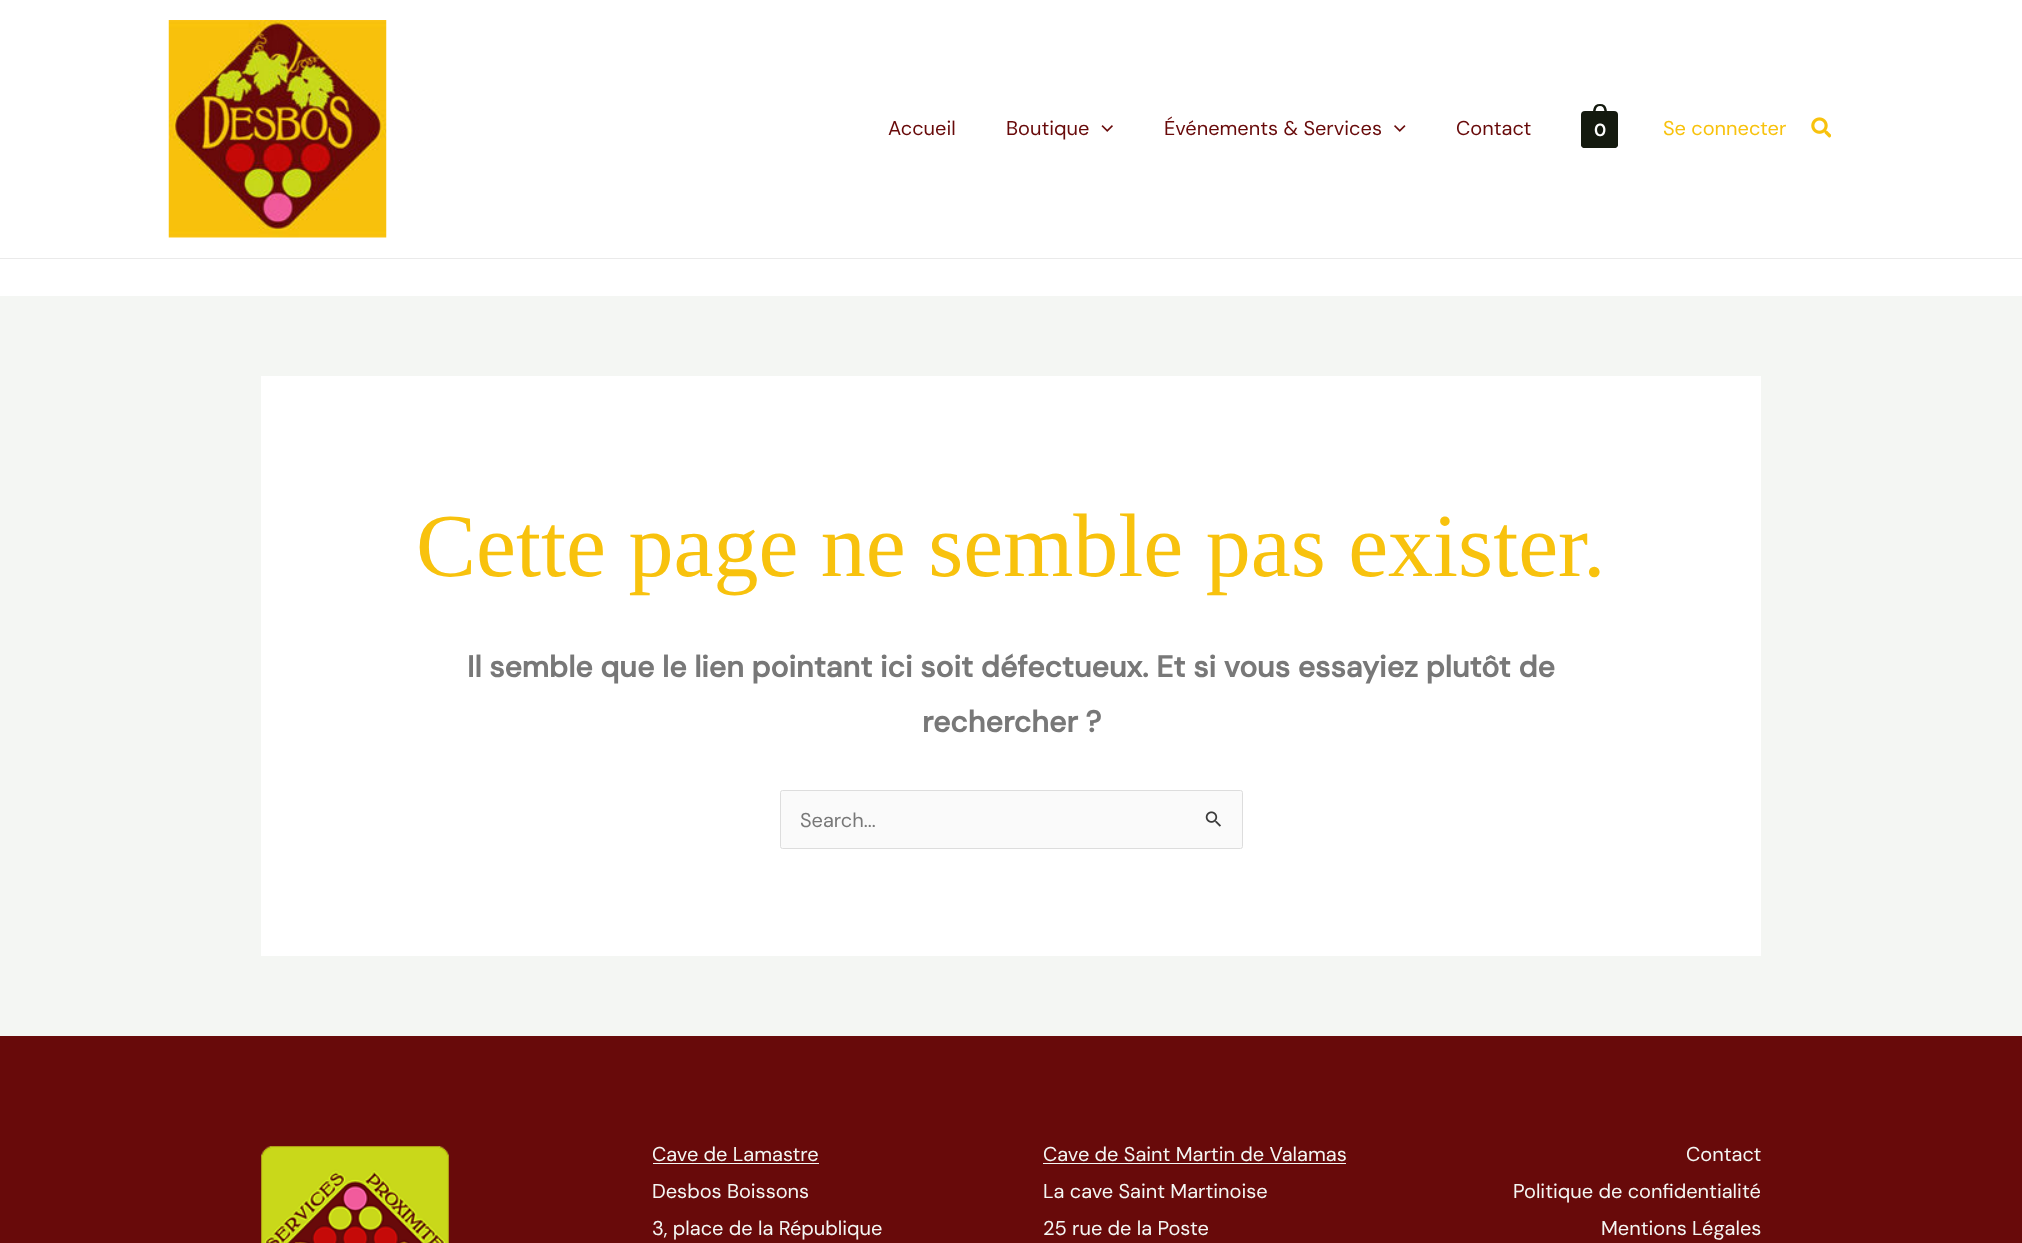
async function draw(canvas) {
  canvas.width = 2022
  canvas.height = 1243
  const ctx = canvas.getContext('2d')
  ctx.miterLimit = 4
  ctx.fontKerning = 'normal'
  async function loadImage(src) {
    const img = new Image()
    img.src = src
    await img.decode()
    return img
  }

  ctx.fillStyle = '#f4f6f3'
  ctx.fillRect(0, 0, 2022, 1243)
  ctx.fillStyle = '#fff'
  ctx.fillRect(0, 0, 2022, 258)
  ctx.fillStyle = '#eaeaea'
  ctx.fillRect(0, 258, 2022, 1)
  ctx.drawImage(await loadImage('image0.png'), 168, 20, 219, 218)
  ctx.font = '20px DM Sans'
  ctx.fillStyle = '#680a0a'
  ctx.fillText('Accueil', 888, 135)
  ctx.fillText('Boutique', 1006, 135)
  ctx.drawImage(await loadImage('image1.png'), 1101, 125, 12, 7)
  ctx.fillText('Événements & Services', 1164, 135)
  ctx.drawImage(await loadImage('image2.png'), 1394, 125, 12, 7)
  ctx.fillText('Contact', 1456, 135)
  ctx.fillStyle = '#141a0f'
  ctx.beginPath()
  ctx.roundRect(1581, 111, 37, 37, 4)
  ctx.fill()
  ctx.beginPath()
  ctx.roundRect(1582.5, 114.5, 34, 32, 2.5)
  ctx.fill()
  ctx.strokeStyle = '#141a0f'
  ctx.lineWidth = 3
  ctx.stroke()
  ctx.beginPath()
  ctx.moveTo(1600, 104)
  ctx.bezierCurveTo(1608, 104, 1607, 112, 1607, 117.5)
  ctx.lineTo(1593, 117.5)
  ctx.bezierCurveTo(1593, 112, 1592, 104, 1600, 104)
  ctx.closePath()
  ctx.moveTo(1600, 106)
  ctx.bezierCurveTo(1605.5, 106, 1604.5, 114, 1604.5, 117.5)
  ctx.lineTo(1595.5, 117.5)
  ctx.bezierCurveTo(1595.5, 114, 1594.5, 106, 1600, 106)
  ctx.closePath()
  ctx.fill('evenodd')
  ctx.font = 'bold 17px DM Sans'
  ctx.fillStyle = '#fff'
  ctx.fillText('0', 1594, 136)
  ctx.font = '20px DM Sans'
  ctx.fillStyle = '#f8c20d'
  ctx.fillText('Se connecter', 1663, 135)
  ctx.drawImage(await loadImage('image3.png'), 1811, 117, 20, 21)
  ctx.fillStyle = '#fff'
  ctx.fillRect(0, 259, 2022, 37)
  ctx.fillRect(261, 376, 1500, 580)
  ctx.font = '90px Liberation Serif'
  ctx.fillStyle = '#f8c20d'
  ctx.fillText('Cette page ne semble pas exister.', 416, 576)
  ctx.font = 'bold 30px DM Sans'
  ctx.fillStyle = '#787878'
  ctx.fillText('Il semble que le lien pointant ici soit défectueux. Et si vous essayiez plutôt de', 467, 677)
  ctx.fillText('rechercher ?', 922, 732)
  ctx.fillStyle = '#fafafa'
  ctx.beginPath()
  ctx.roundRect(780.5, 790.5, 462, 58, 2)
  ctx.fill()
  ctx.strokeStyle = '#ddd'
  ctx.lineWidth = 1
  ctx.stroke()
  ctx.font = '20px DM Sans'
  ctx.fillStyle = '#787878'
  ctx.fillText('Search...', 800, 827)
  ctx.drawImage(await loadImage('image4.png'), 1205, 811, 16, 16)
  ctx.fillStyle = '#680a0a'
  ctx.fillRect(0, 1036, 2022, 207)
  ctx.drawImage(await loadImage('image5.png'), 261, 1146, 188, 97)
  ctx.fillStyle = '#f4f6f3'
  ctx.fillText('Cave de Lamastre', 652, 1161)
  ctx.fillRect(653, 1163, 166, 1)
  ctx.fillText('Desbos Boissons', 652, 1198)
  ctx.fillText('3, place de la République', 652, 1235)
  ctx.fillText('Cave de Saint Martin de Valamas', 1043, 1161)
  ctx.fillRect(1043, 1163, 303, 1)
  ctx.fillText('La cave Saint Martinoise', 1043, 1198)
  ctx.fillText('25 rue de la Poste', 1043, 1235)
  ctx.fillText('Contact', 1686, 1161)
  ctx.fillText('Politique de confidentialité', 1513, 1198)
  ctx.fillText('Mentions Légales', 1601, 1235)
}

draw(document.querySelector('canvas'))
